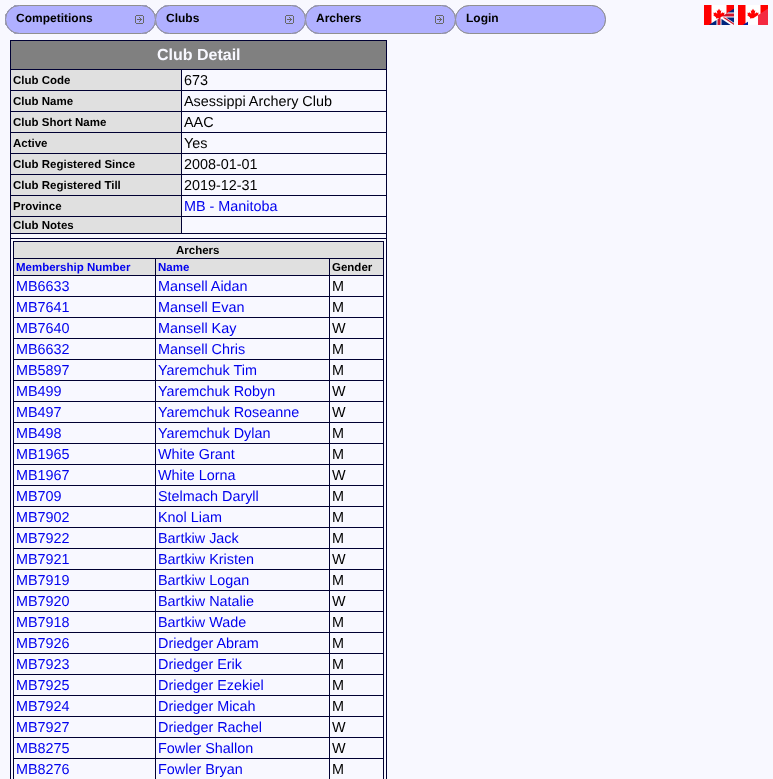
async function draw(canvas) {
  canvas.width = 773
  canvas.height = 779
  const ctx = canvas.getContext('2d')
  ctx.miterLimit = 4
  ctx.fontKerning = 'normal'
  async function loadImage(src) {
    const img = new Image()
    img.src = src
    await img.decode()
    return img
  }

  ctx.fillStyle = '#f8f8ff'
  ctx.fillRect(0, 0, 773, 779)
  ctx.beginPath()
  ctx.roundRect(5.5, 5.5, 150, 28, 14)
  ctx.strokeStyle = '#909090'
  ctx.stroke()
  ctx.beginPath()
  ctx.roundRect(155.5, 5.5, 150, 28, 14)
  ctx.stroke()
  ctx.beginPath()
  ctx.roundRect(5.5, 5.5, 150, 28, 14)
  ctx.stroke()
  ctx.beginPath()
  ctx.roundRect(5.5, 5.5, 150, 28, 14)
  ctx.stroke()
  ctx.beginPath()
  ctx.roundRect(5.5, 5.5, 150, 28, 14)
  ctx.stroke()
  ctx.beginPath()
  ctx.roundRect(5.5, 5.5, 150, 28, 14)
  ctx.stroke()
  ctx.beginPath()
  ctx.roundRect(5.5, 5.5, 150, 28, 14)
  ctx.stroke()
  ctx.beginPath()
  ctx.roundRect(5.5, 5.5, 150, 28, 14)
  ctx.stroke()
  ctx.beginPath()
  ctx.roundRect(5.5, 5.5, 150, 28, 14)
  ctx.stroke()
  ctx.beginPath()
  ctx.roundRect(5.5, 5.5, 150, 28, 14)
  ctx.stroke()
  ctx.beginPath()
  ctx.roundRect(5.5, 5.5, 150, 28, 14)
  ctx.stroke()
  ctx.beginPath()
  ctx.roundRect(5.5, 5.5, 150, 28, 14)
  ctx.stroke()
  ctx.beginPath()
  ctx.roundRect(5.5, 5.5, 150, 28, 14)
  ctx.stroke()
  ctx.beginPath()
  ctx.roundRect(5.5, 5.5, 150, 28, 14)
  ctx.stroke()
  ctx.beginPath()
  ctx.roundRect(5.5, 5.5, 150, 28, 14)
  ctx.stroke()
  ctx.beginPath()
  ctx.roundRect(5.5, 5.5, 150, 28, 14)
  ctx.stroke()
  ctx.fillStyle = '#b0b0ff'
  ctx.beginPath()
  ctx.roundRect(5, 5, 151, 29, 14.5)
  ctx.fill()
  ctx.drawImage(await loadImage('image0.png'), 135, 15, 9, 9)
  ctx.beginPath()
  ctx.roundRect(5.5, 5.5, 150, 28, 14)
  ctx.stroke()
  ctx.font = 'bold 12px Liberation Sans'
  ctx.fillStyle = '#000'
  ctx.fillText('Competitions', 16, 22)
  ctx.beginPath()
  ctx.roundRect(305.5, 5.5, 150, 28, 14)
  ctx.stroke()
  ctx.beginPath()
  ctx.roundRect(155.5, 5.5, 150, 28, 14)
  ctx.stroke()
  ctx.beginPath()
  ctx.roundRect(155.5, 5.5, 150, 28, 14)
  ctx.stroke()
  ctx.beginPath()
  ctx.roundRect(155.5, 5.5, 150, 28, 14)
  ctx.stroke()
  ctx.beginPath()
  ctx.roundRect(155.5, 5.5, 150, 28, 14)
  ctx.stroke()
  ctx.beginPath()
  ctx.roundRect(155.5, 5.5, 150, 28, 14)
  ctx.stroke()
  ctx.fillStyle = '#b0b0ff'
  ctx.beginPath()
  ctx.roundRect(155, 5, 151, 29, 14.5)
  ctx.fill()
  ctx.drawImage(await loadImage('image0.png'), 285, 15, 9, 9)
  ctx.beginPath()
  ctx.roundRect(155.5, 5.5, 150, 28, 14)
  ctx.stroke()
  ctx.fillStyle = '#000'
  ctx.fillText('Clubs', 166, 22)
  ctx.beginPath()
  ctx.roundRect(455.5, 5.5, 150, 28, 14)
  ctx.stroke()
  ctx.beginPath()
  ctx.roundRect(305.5, 5.5, 150, 28, 14)
  ctx.stroke()
  ctx.beginPath()
  ctx.roundRect(305.5, 5.5, 150, 28, 14)
  ctx.stroke()
  ctx.beginPath()
  ctx.roundRect(305.5, 5.5, 150, 28, 14)
  ctx.stroke()
  ctx.beginPath()
  ctx.roundRect(305.5, 5.5, 150, 28, 14)
  ctx.stroke()
  ctx.beginPath()
  ctx.roundRect(305.5, 5.5, 150, 28, 14)
  ctx.stroke()
  ctx.fillStyle = '#b0b0ff'
  ctx.beginPath()
  ctx.roundRect(305, 5, 151, 29, 14.5)
  ctx.fill()
  ctx.drawImage(await loadImage('image0.png'), 435, 15, 9, 9)
  ctx.beginPath()
  ctx.roundRect(305.5, 5.5, 150, 28, 14)
  ctx.stroke()
  ctx.fillStyle = '#000'
  ctx.fillText('Archers', 316, 22)
  ctx.fillStyle = '#b0b0ff'
  ctx.beginPath()
  ctx.roundRect(455.5, 5.5, 150, 28, 14)
  ctx.fill()
  ctx.stroke()
  ctx.fillStyle = '#000'
  ctx.fillText('Login', 466, 22)
  ctx.drawImage(await loadImage('image1.png'), 704, 5, 30, 20)
  ctx.drawImage(await loadImage('image2.png'), 738, 5, 30, 20)
  ctx.fillStyle = '#003'
  ctx.fillRect(10, 40, 377, 1)
  ctx.fillRect(386, 40, 1, 739)
  ctx.fillRect(10, 40, 1, 739)
  ctx.fillStyle = '#808080'
  ctx.fillRect(11, 41, 375, 28)
  ctx.font = 'bold 16px Liberation Sans'
  ctx.fillStyle = '#f8f8ff'
  ctx.fillText('Club Detail', 157, 60)
  ctx.fillStyle = '#e0e0e0'
  ctx.fillRect(11, 70, 170, 20)
  ctx.fillStyle = '#003'
  ctx.fillRect(181, 69, 206, 1)
  ctx.fillRect(181, 90, 206, 1)
  ctx.fillRect(181, 111, 206, 1)
  ctx.fillRect(181, 132, 206, 1)
  ctx.fillRect(181, 153, 206, 1)
  ctx.fillRect(181, 174, 206, 1)
  ctx.fillRect(181, 195, 206, 1)
  ctx.fillRect(181, 216, 206, 1)
  ctx.fillRect(10, 233, 377, 1)
  ctx.fillRect(181, 216, 1, 18)
  ctx.fillRect(10, 216, 172, 1)
  ctx.fillRect(181, 195, 1, 22)
  ctx.fillRect(10, 195, 172, 1)
  ctx.fillRect(181, 174, 1, 22)
  ctx.fillRect(10, 174, 172, 1)
  ctx.fillRect(181, 153, 1, 22)
  ctx.fillRect(10, 153, 172, 1)
  ctx.fillRect(181, 132, 1, 22)
  ctx.fillRect(10, 132, 172, 1)
  ctx.fillRect(181, 111, 1, 22)
  ctx.fillRect(10, 111, 172, 1)
  ctx.fillRect(181, 90, 1, 22)
  ctx.fillRect(10, 90, 172, 1)
  ctx.fillRect(181, 69, 1, 22)
  ctx.fillRect(10, 69, 172, 1)
  ctx.font = 'bold 11.5px Liberation Sans'
  ctx.fillStyle = '#000'
  ctx.fillText('Club Code', 13, 84)
  ctx.font = '14.4px Liberation Sans'
  ctx.fillText('673', 184, 85)
  ctx.fillStyle = '#e0e0e0'
  ctx.fillRect(11, 91, 170, 20)
  ctx.font = 'bold 11.5px Liberation Sans'
  ctx.fillStyle = '#000'
  ctx.fillText('Club Name', 13, 105)
  ctx.font = '14.4px Liberation Sans'
  ctx.fillText('Asessippi Archery Club', 184, 106)
  ctx.fillStyle = '#e0e0e0'
  ctx.fillRect(11, 112, 170, 20)
  ctx.font = 'bold 11.5px Liberation Sans'
  ctx.fillStyle = '#000'
  ctx.fillText('Club Short Name', 13, 126)
  ctx.font = '14.4px Liberation Sans'
  ctx.fillText('AAC', 184, 127)
  ctx.fillStyle = '#e0e0e0'
  ctx.fillRect(11, 133, 170, 20)
  ctx.font = 'bold 11.5px Liberation Sans'
  ctx.fillStyle = '#000'
  ctx.fillText('Active', 13, 147)
  ctx.font = '14.4px Liberation Sans'
  ctx.fillText('Yes', 184, 148)
  ctx.fillStyle = '#e0e0e0'
  ctx.fillRect(11, 154, 170, 20)
  ctx.font = 'bold 11.5px Liberation Sans'
  ctx.fillStyle = '#000'
  ctx.fillText('Club Registered Since', 13, 168)
  ctx.font = '14.4px Liberation Sans'
  ctx.fillText('2008-01-01', 184, 169)
  ctx.fillStyle = '#e0e0e0'
  ctx.fillRect(11, 175, 170, 20)
  ctx.font = 'bold 11.5px Liberation Sans'
  ctx.fillStyle = '#000'
  ctx.fillText('Club Registered Till', 13, 189)
  ctx.font = '14.4px Liberation Sans'
  ctx.fillText('2019-12-31', 184, 190)
  ctx.fillStyle = '#e0e0e0'
  ctx.fillRect(11, 196, 170, 20)
  ctx.font = 'bold 11.5px Liberation Sans'
  ctx.fillStyle = '#000'
  ctx.fillText('Province', 13, 210)
  ctx.font = '14.4px Liberation Sans'
  ctx.fillStyle = '#00e'
  ctx.fillText('MB - Manitoba', 184, 211)
  ctx.fillStyle = '#e0e0e0'
  ctx.fillRect(11, 217, 170, 16)
  ctx.font = 'bold 11.5px Liberation Sans'
  ctx.fillStyle = '#000'
  ctx.fillText('Club Notes', 13, 229)
  ctx.fillStyle = '#003'
  ctx.fillRect(10, 238, 377, 1)
  ctx.fillRect(13, 241, 371, 1)
  ctx.fillRect(383, 241, 1, 538)
  ctx.fillRect(13, 241, 1, 538)
  ctx.fillStyle = '#e0e0e0'
  ctx.fillRect(14, 242, 369, 16)
  ctx.fillStyle = '#000'
  ctx.fillText('Archers', 176, 254)
  ctx.fillStyle = '#e0e0e0'
  ctx.fillRect(14, 259, 141, 16)
  ctx.fillStyle = '#003'
  ctx.fillRect(329, 258, 55, 1)
  ctx.fillRect(329, 275, 55, 1)
  ctx.fillRect(329, 296, 55, 1)
  ctx.fillRect(329, 317, 55, 1)
  ctx.fillRect(329, 338, 55, 1)
  ctx.fillRect(329, 359, 55, 1)
  ctx.fillRect(329, 380, 55, 1)
  ctx.fillRect(329, 401, 55, 1)
  ctx.fillRect(329, 422, 55, 1)
  ctx.fillRect(329, 443, 55, 1)
  ctx.fillRect(329, 464, 55, 1)
  ctx.fillRect(329, 485, 55, 1)
  ctx.fillRect(329, 506, 55, 1)
  ctx.fillRect(329, 527, 55, 1)
  ctx.fillRect(329, 548, 55, 1)
  ctx.fillRect(329, 569, 55, 1)
  ctx.fillRect(329, 590, 55, 1)
  ctx.fillRect(329, 611, 55, 1)
  ctx.fillRect(329, 632, 55, 1)
  ctx.fillRect(329, 653, 55, 1)
  ctx.fillRect(329, 674, 55, 1)
  ctx.fillRect(329, 695, 55, 1)
  ctx.fillRect(329, 716, 55, 1)
  ctx.fillRect(329, 737, 55, 1)
  ctx.fillRect(329, 758, 55, 1)
  ctx.fillRect(329, 758, 1, 21)
  ctx.fillRect(155, 758, 175, 1)
  ctx.fillRect(329, 737, 1, 22)
  ctx.fillRect(155, 737, 175, 1)
  ctx.fillRect(329, 716, 1, 22)
  ctx.fillRect(155, 716, 175, 1)
  ctx.fillRect(329, 695, 1, 22)
  ctx.fillRect(155, 695, 175, 1)
  ctx.fillRect(329, 674, 1, 22)
  ctx.fillRect(155, 674, 175, 1)
  ctx.fillRect(329, 653, 1, 22)
  ctx.fillRect(155, 653, 175, 1)
  ctx.fillRect(329, 632, 1, 22)
  ctx.fillRect(155, 632, 175, 1)
  ctx.fillRect(329, 611, 1, 22)
  ctx.fillRect(155, 611, 175, 1)
  ctx.fillRect(329, 590, 1, 22)
  ctx.fillRect(155, 590, 175, 1)
  ctx.fillRect(329, 569, 1, 22)
  ctx.fillRect(155, 569, 175, 1)
  ctx.fillRect(329, 548, 1, 22)
  ctx.fillRect(155, 548, 175, 1)
  ctx.fillRect(329, 527, 1, 22)
  ctx.fillRect(155, 527, 175, 1)
  ctx.fillRect(329, 506, 1, 22)
  ctx.fillRect(155, 506, 175, 1)
  ctx.fillRect(329, 485, 1, 22)
  ctx.fillRect(155, 485, 175, 1)
  ctx.fillRect(329, 464, 1, 22)
  ctx.fillRect(155, 464, 175, 1)
  ctx.fillRect(329, 443, 1, 22)
  ctx.fillRect(155, 443, 175, 1)
  ctx.fillRect(329, 422, 1, 22)
  ctx.fillRect(155, 422, 175, 1)
  ctx.fillRect(329, 401, 1, 22)
  ctx.fillRect(155, 401, 175, 1)
  ctx.fillRect(329, 380, 1, 22)
  ctx.fillRect(155, 380, 175, 1)
  ctx.fillRect(329, 359, 1, 22)
  ctx.fillRect(155, 359, 175, 1)
  ctx.fillRect(329, 338, 1, 22)
  ctx.fillRect(155, 338, 175, 1)
  ctx.fillRect(329, 317, 1, 22)
  ctx.fillRect(155, 317, 175, 1)
  ctx.fillRect(329, 296, 1, 22)
  ctx.fillRect(155, 296, 175, 1)
  ctx.fillRect(329, 275, 1, 22)
  ctx.fillRect(155, 275, 175, 1)
  ctx.fillRect(329, 258, 1, 18)
  ctx.fillRect(155, 258, 175, 1)
  ctx.fillRect(155, 758, 1, 21)
  ctx.fillRect(13, 758, 143, 1)
  ctx.fillRect(155, 737, 1, 22)
  ctx.fillRect(13, 737, 143, 1)
  ctx.fillRect(155, 716, 1, 22)
  ctx.fillRect(13, 716, 143, 1)
  ctx.fillRect(155, 695, 1, 22)
  ctx.fillRect(13, 695, 143, 1)
  ctx.fillRect(155, 674, 1, 22)
  ctx.fillRect(13, 674, 143, 1)
  ctx.fillRect(155, 653, 1, 22)
  ctx.fillRect(13, 653, 143, 1)
  ctx.fillRect(155, 632, 1, 22)
  ctx.fillRect(13, 632, 143, 1)
  ctx.fillRect(155, 611, 1, 22)
  ctx.fillRect(13, 611, 143, 1)
  ctx.fillRect(155, 590, 1, 22)
  ctx.fillRect(13, 590, 143, 1)
  ctx.fillRect(155, 569, 1, 22)
  ctx.fillRect(13, 569, 143, 1)
  ctx.fillRect(155, 548, 1, 22)
  ctx.fillRect(13, 548, 143, 1)
  ctx.fillRect(155, 527, 1, 22)
  ctx.fillRect(13, 527, 143, 1)
  ctx.fillRect(155, 506, 1, 22)
  ctx.fillRect(13, 506, 143, 1)
  ctx.fillRect(155, 485, 1, 22)
  ctx.fillRect(13, 485, 143, 1)
  ctx.fillRect(155, 464, 1, 22)
  ctx.fillRect(13, 464, 143, 1)
  ctx.fillRect(155, 443, 1, 22)
  ctx.fillRect(13, 443, 143, 1)
  ctx.fillRect(155, 422, 1, 22)
  ctx.fillRect(13, 422, 143, 1)
  ctx.fillRect(155, 401, 1, 22)
  ctx.fillRect(13, 401, 143, 1)
  ctx.fillRect(155, 380, 1, 22)
  ctx.fillRect(13, 380, 143, 1)
  ctx.fillRect(155, 359, 1, 22)
  ctx.fillRect(13, 359, 143, 1)
  ctx.fillRect(155, 338, 1, 22)
  ctx.fillRect(13, 338, 143, 1)
  ctx.fillRect(155, 317, 1, 22)
  ctx.fillRect(13, 317, 143, 1)
  ctx.fillRect(155, 296, 1, 22)
  ctx.fillRect(13, 296, 143, 1)
  ctx.fillRect(155, 275, 1, 22)
  ctx.fillRect(13, 275, 143, 1)
  ctx.fillRect(155, 258, 1, 18)
  ctx.fillRect(13, 258, 143, 1)
  ctx.fillStyle = '#00e'
  ctx.fillText('Membership Number', 16, 271)
  ctx.fillStyle = '#e0e0e0'
  ctx.fillRect(156, 259, 173, 16)
  ctx.fillStyle = '#00e'
  ctx.fillText('Name', 158, 271)
  ctx.fillStyle = '#e0e0e0'
  ctx.fillRect(330, 259, 53, 16)
  ctx.fillStyle = '#000'
  ctx.fillText('Gender', 332, 271)
  ctx.font = '14.4px Liberation Sans'
  ctx.fillStyle = '#00e'
  ctx.fillText('MB6633', 16, 291)
  ctx.fillText('Mansell Aidan', 158, 291)
  ctx.fillStyle = '#000'
  ctx.fillText('M', 332, 291)
  ctx.fillStyle = '#00e'
  ctx.fillText('MB7641', 16, 312)
  ctx.fillText('Mansell Evan', 158, 312)
  ctx.fillStyle = '#000'
  ctx.fillText('M', 332, 312)
  ctx.fillStyle = '#00e'
  ctx.fillText('MB7640', 16, 333)
  ctx.fillText('Mansell Kay', 158, 333)
  ctx.fillStyle = '#000'
  ctx.fillText('W', 332, 333)
  ctx.fillStyle = '#00e'
  ctx.fillText('MB6632', 16, 354)
  ctx.fillText('Mansell Chris', 158, 354)
  ctx.fillStyle = '#000'
  ctx.fillText('M', 332, 354)
  ctx.fillStyle = '#00e'
  ctx.fillText('MB5897', 16, 375)
  ctx.fillText('Yaremchuk Tim', 158, 375)
  ctx.fillStyle = '#000'
  ctx.fillText('M', 332, 375)
  ctx.fillStyle = '#00e'
  ctx.fillText('MB499', 16, 396)
  ctx.fillText('Yaremchuk Robyn', 158, 396)
  ctx.fillStyle = '#000'
  ctx.fillText('W', 332, 396)
  ctx.fillStyle = '#00e'
  ctx.fillText('MB497', 16, 417)
  ctx.fillText('Yaremchuk Roseanne', 158, 417)
  ctx.fillStyle = '#000'
  ctx.fillText('W', 332, 417)
  ctx.fillStyle = '#00e'
  ctx.fillText('MB498', 16, 438)
  ctx.fillText('Yaremchuk Dylan', 158, 438)
  ctx.fillStyle = '#000'
  ctx.fillText('M', 332, 438)
  ctx.fillStyle = '#00e'
  ctx.fillText('MB1965', 16, 459)
  ctx.fillText('White Grant', 158, 459)
  ctx.fillStyle = '#000'
  ctx.fillText('M', 332, 459)
  ctx.fillStyle = '#00e'
  ctx.fillText('MB1967', 16, 480)
  ctx.fillText('White Lorna', 158, 480)
  ctx.fillStyle = '#000'
  ctx.fillText('W', 332, 480)
  ctx.fillStyle = '#00e'
  ctx.fillText('MB709', 16, 501)
  ctx.fillText('Stelmach Daryll', 158, 501)
  ctx.fillStyle = '#000'
  ctx.fillText('M', 332, 501)
  ctx.fillStyle = '#00e'
  ctx.fillText('MB7902', 16, 522)
  ctx.fillText('Knol Liam', 158, 522)
  ctx.fillStyle = '#000'
  ctx.fillText('M', 332, 522)
  ctx.fillStyle = '#00e'
  ctx.fillText('MB7922', 16, 543)
  ctx.fillText('Bartkiw Jack', 158, 543)
  ctx.fillStyle = '#000'
  ctx.fillText('M', 332, 543)
  ctx.fillStyle = '#00e'
  ctx.fillText('MB7921', 16, 564)
  ctx.fillText('Bartkiw Kristen', 158, 564)
  ctx.fillStyle = '#000'
  ctx.fillText('W', 332, 564)
  ctx.fillStyle = '#00e'
  ctx.fillText('MB7919', 16, 585)
  ctx.fillText('Bartkiw Logan', 158, 585)
  ctx.fillStyle = '#000'
  ctx.fillText('M', 332, 585)
  ctx.fillStyle = '#00e'
  ctx.fillText('MB7920', 16, 606)
  ctx.fillText('Bartkiw Natalie', 158, 606)
  ctx.fillStyle = '#000'
  ctx.fillText('W', 332, 606)
  ctx.fillStyle = '#00e'
  ctx.fillText('MB7918', 16, 627)
  ctx.fillText('Bartkiw Wade', 158, 627)
  ctx.fillStyle = '#000'
  ctx.fillText('M', 332, 627)
  ctx.fillStyle = '#00e'
  ctx.fillText('MB7926', 16, 648)
  ctx.fillText('Driedger Abram', 158, 648)
  ctx.fillStyle = '#000'
  ctx.fillText('M', 332, 648)
  ctx.fillStyle = '#00e'
  ctx.fillText('MB7923', 16, 669)
  ctx.fillText('Driedger Erik', 158, 669)
  ctx.fillStyle = '#000'
  ctx.fillText('M', 332, 669)
  ctx.fillStyle = '#00e'
  ctx.fillText('MB7925', 16, 690)
  ctx.fillText('Driedger Ezekiel', 158, 690)
  ctx.fillStyle = '#000'
  ctx.fillText('M', 332, 690)
  ctx.fillStyle = '#00e'
  ctx.fillText('MB7924', 16, 711)
  ctx.fillText('Driedger Micah', 158, 711)
  ctx.fillStyle = '#000'
  ctx.fillText('M', 332, 711)
  ctx.fillStyle = '#00e'
  ctx.fillText('MB7927', 16, 732)
  ctx.fillText('Driedger Rachel', 158, 732)
  ctx.fillStyle = '#000'
  ctx.fillText('W', 332, 732)
  ctx.fillStyle = '#00e'
  ctx.fillText('MB8275', 16, 753)
  ctx.fillText('Fowler Shallon', 158, 753)
  ctx.fillStyle = '#000'
  ctx.fillText('W', 332, 753)
  ctx.fillStyle = '#00e'
  ctx.fillText('MB8276', 16, 774)
  ctx.fillText('Fowler Bryan', 158, 774)
  ctx.fillStyle = '#000'
  ctx.fillText('M', 332, 774)
}

draw(document.querySelector('canvas'))
